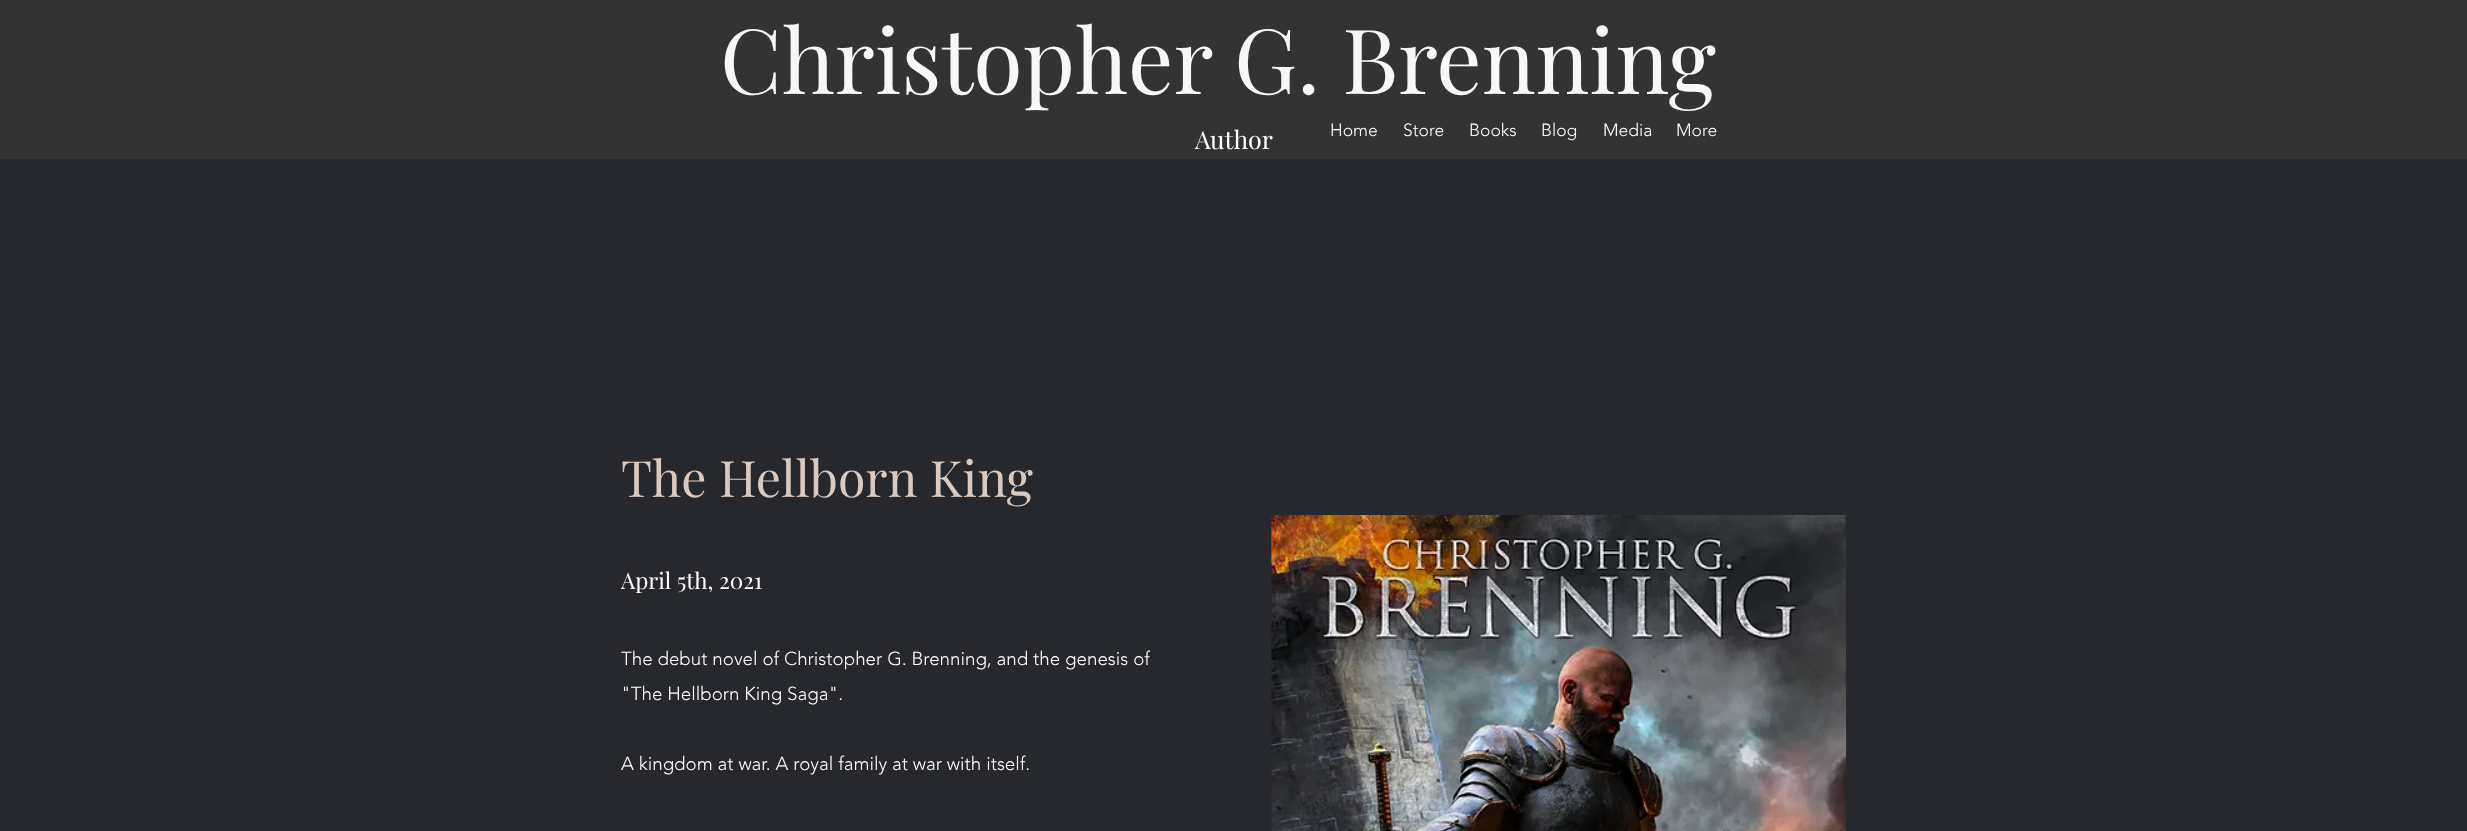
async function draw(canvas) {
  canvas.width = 2467
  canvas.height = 831
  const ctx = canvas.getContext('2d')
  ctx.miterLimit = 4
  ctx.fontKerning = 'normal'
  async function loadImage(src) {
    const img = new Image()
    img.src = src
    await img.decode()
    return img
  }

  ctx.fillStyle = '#26282d'
  ctx.fillRect(0, 0, 2467, 831)
  ctx.fillStyle = '#333'
  ctx.fillRect(0, 0, 2467, 159)
  ctx.font = '90px Playfair Display'
  ctx.fillStyle = '#f7f7f7'
  ctx.fillText('Christopher G. Brenning', 720, 94)
  ctx.font = '25px Playfair Display'
  ctx.fillStyle = '#fff'
  ctx.fillText('Author', 1195, 149)
  ctx.font = '300 17.5px "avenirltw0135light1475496"'
  ctx.fillText('Home', 1330, 136)
  ctx.fillText('Store', 1403, 136)
  ctx.fillText('Books', 1469, 136)
  ctx.fillText('Blog', 1541, 136)
  ctx.fillText('Media', 1603, 136)
  ctx.fillText('More', 1676, 136)
  ctx.font = '50px Playfair Display'
  ctx.fillStyle = '#dbc8be'
  ctx.fillText('The Hellborn King', 621, 497)
  ctx.font = '22.5px Playfair Display'
  ctx.fillStyle = '#fff'
  ctx.fillText('April 5th, 2021', 621, 589)
  ctx.font = '300 18.75px "avenirltw0135light1475496"'
  ctx.fillText('The debut novel of Christopher G. Brenning, and the genesis of', 621, 665)
  ctx.fillText('"The Hellborn King Saga".', 621, 700)
  ctx.fillText('A kingdom at war. A royal family at war with itself.', 621, 770)
  ctx.drawImage(await loadImage('image0.png'), 1271, 515, 576, 316)
}

draw(document.querySelector('canvas'))
